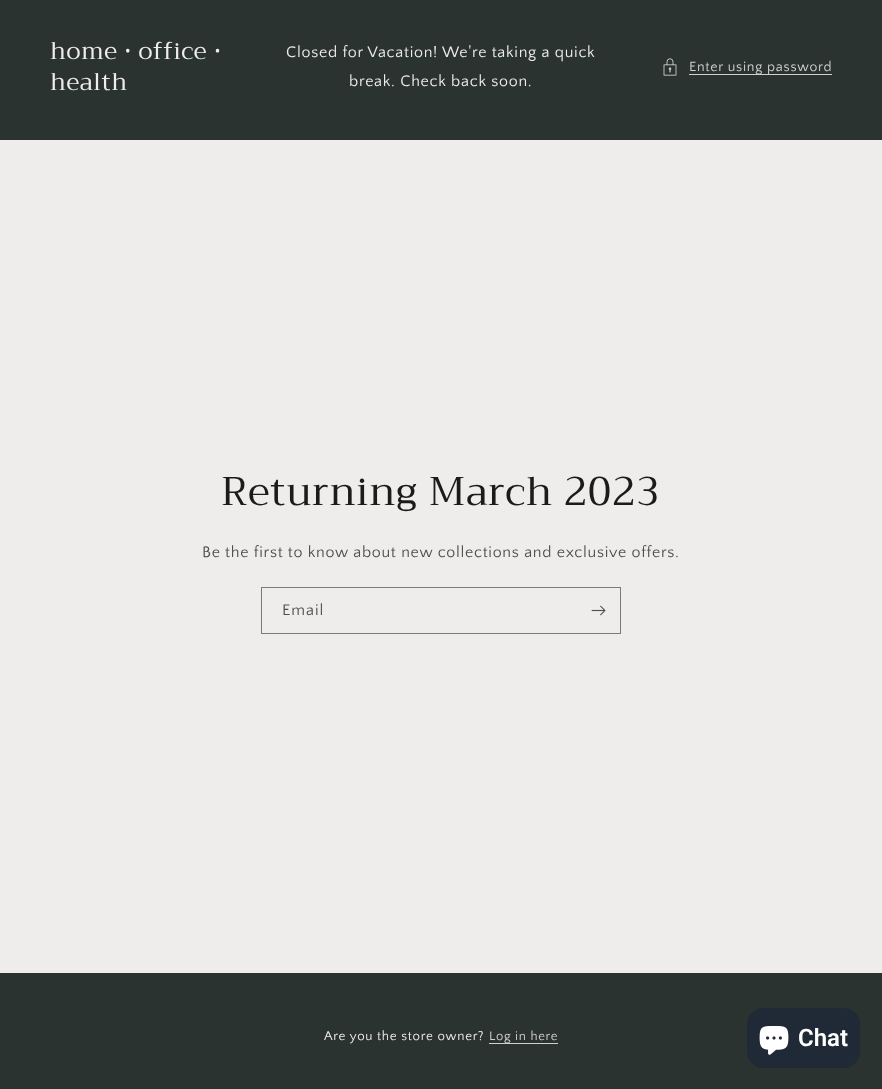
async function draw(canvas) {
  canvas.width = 882
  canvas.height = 1089
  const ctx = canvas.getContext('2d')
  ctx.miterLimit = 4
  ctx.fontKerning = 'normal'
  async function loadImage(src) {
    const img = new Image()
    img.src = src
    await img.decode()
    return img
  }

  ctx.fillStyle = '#efecec'
  ctx.fillRect(0, 0, 882, 1089)
  ctx.fillStyle = '#2a332f'
  ctx.fillRect(0, 0, 882, 140)
  ctx.letterSpacing = '0.6px'
  ctx.font = '24px Trirong'
  ctx.fillStyle = '#efecec'
  ctx.fillText('home • office •', 50, 59)
  ctx.fillText('health', 50, 90)
  ctx.letterSpacing = '0.7px'
  ctx.font = '16px Quattrocento Sans'
  ctx.fillText('Closed for Vacation! We\'re taking a quick', 286, 57)
  ctx.fillText('break. Check back soon.', 349, 86)
  ctx.drawImage(await loadImage('image0.png'), 663, 58, 14, 18)
  ctx.fillStyle = '#d1d0d0'
  ctx.fillRect(689, 74, 143, 1)
  ctx.font = '14px Quattrocento Sans'
  ctx.fillStyle = '#d2d1d0'
  ctx.fillText('Enter using password', 689, 71)
  ctx.letterSpacing = '0.6px'
  ctx.font = '40px Trirong'
  ctx.fillStyle = '#1c1a1a'
  ctx.fillText('Returning March 2023', 221, 505)
  ctx.letterSpacing = '0.7px'
  ctx.font = '16px Quattrocento Sans'
  ctx.fillStyle = '#514f4f'
  ctx.fillText('Be the first to know about new collections and exclusive offers.', 202, 557)
  ctx.strokeStyle = '#7b7979'
  ctx.strokeRect(261.5, 587.5, 359, 46)
  ctx.letterSpacing = '1px'
  ctx.fillText('Email', 282, 615)
  ctx.drawImage(await loadImage('image1.png'), 591, 605, 15, 11)
  ctx.fillStyle = '#2a332f'
  ctx.fillRect(0, 973, 882, 116)
  ctx.letterSpacing = '0.7px'
  ctx.font = '13.25px Quattrocento Sans'
  ctx.fillStyle = '#efecec'
  ctx.fillText('Are you the store owner?', 324, 1040)
  ctx.fillStyle = '#d1d0d0'
  ctx.fillRect(489, 1043, 69, 1)
  ctx.font = '13px Quattrocento Sans'
  ctx.fillStyle = '#d2d1d0'
  ctx.fillText('Log in here', 489, 1040)
  ctx.fillStyle = '#202a36'
  ctx.beginPath()
  ctx.roundRect(747, 1008, 113, 60, 16)
  ctx.fill()
  ctx.drawImage(await loadImage('image2.png'), 759, 1026, 30, 29)
  ctx.letterSpacing = '0px'
  ctx.font = '600 24px Roboto'
  ctx.fillStyle = '#fff'
  ctx.fillText('Chat', 798, 1046)
}

draw(document.querySelector('canvas'))
